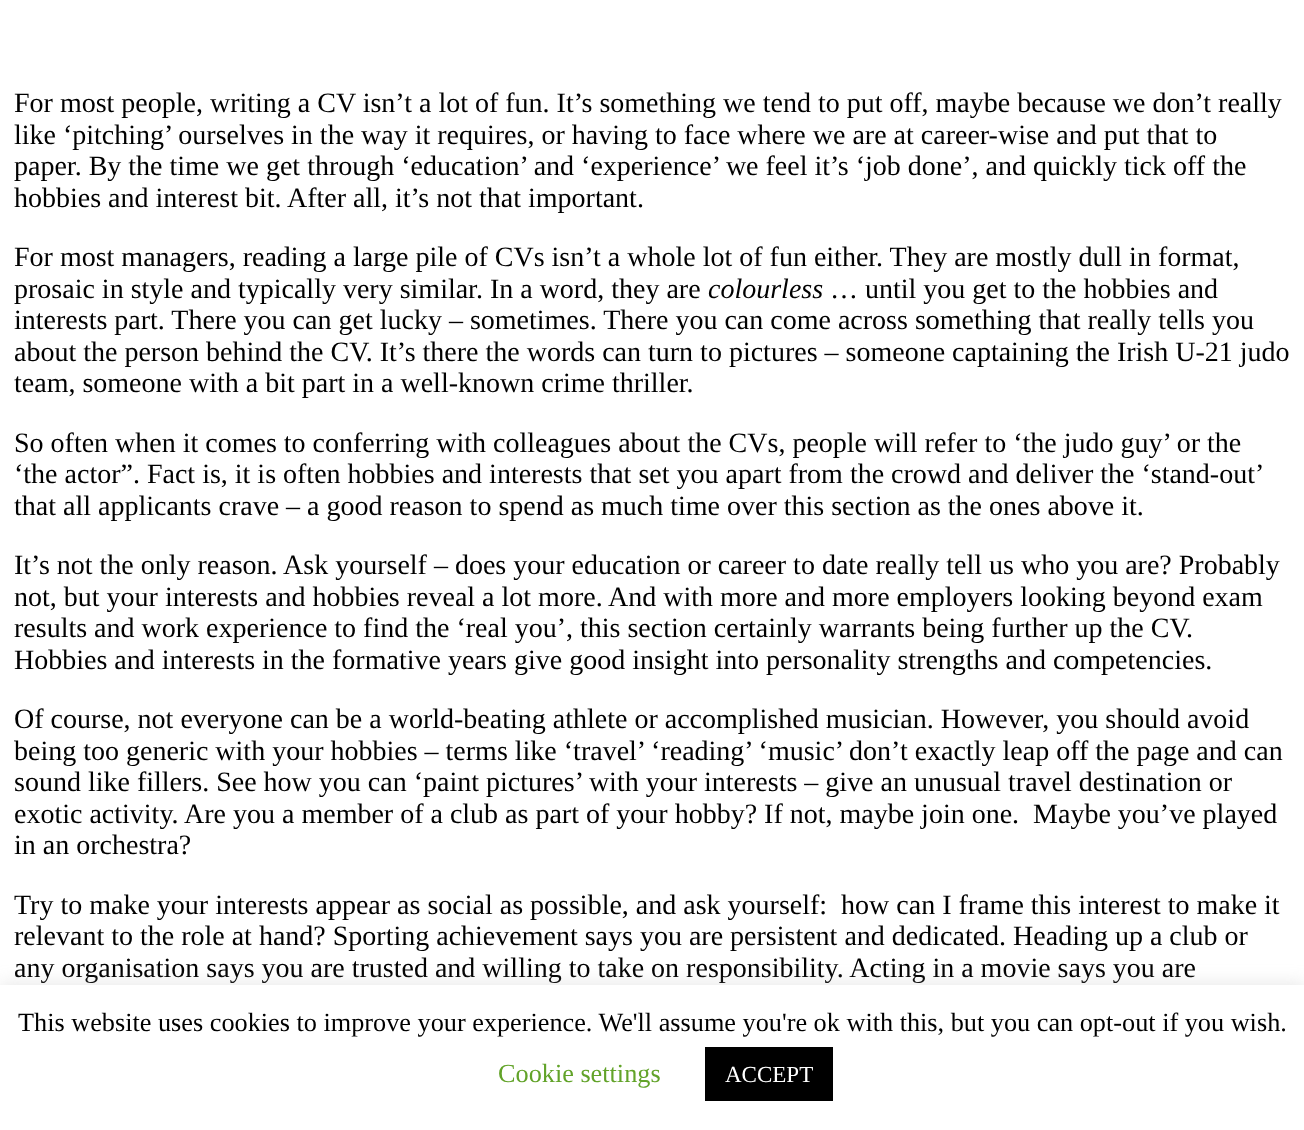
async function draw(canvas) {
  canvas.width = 1304
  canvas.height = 1130
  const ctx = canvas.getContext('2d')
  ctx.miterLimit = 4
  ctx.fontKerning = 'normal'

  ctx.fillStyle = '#fff'
  ctx.fillRect(0, 0, 1304, 1130)
  ctx.font = '28px Liberation Serif'
  ctx.fillStyle = '#000'
  ctx.fillText('For most people, writing a CV isn’t a lot of fun. It’s something we tend to put off, maybe because we don’t really', 14, 112)
  ctx.fillText('like ‘pitching’ ourselves in the way it requires, or having to face where we are at career-wise and put that to', 14, 144)
  ctx.fillText('paper. By the time we get through ‘education’ and ‘experience’ we feel it’s ‘job done’, and quickly tick off the', 14, 175)
  ctx.fillText('hobbies and interest bit. After all, it’s not that important.', 14, 207)
  ctx.fillText('For most managers, reading a large pile of CVs isn’t a whole lot of fun either. They are mostly dull in format,', 14, 266)
  ctx.fillText('prosaic in style and typically very similar. In a word, they are', 14, 298)
  ctx.font = 'italic 28px Liberation Serif'
  ctx.fillText('colourless', 708, 298)
  ctx.font = '28px Liberation Serif'
  ctx.fillText('… until you get to the hobbies and', 830, 298)
  ctx.fillText('interests part. There you can get lucky – sometimes. There you can come across something that really tells you', 14, 329)
  ctx.fillText('about the person behind the CV. It’s there the words can turn to pictures – someone captaining the Irish U-21 judo', 14, 361)
  ctx.fillText('team, someone with a bit part in a well-known crime thriller.', 14, 392)
  ctx.fillText('So often when it comes to conferring with colleagues about the CVs, people will refer to ‘the judo guy’ or the', 14, 452)
  ctx.fillText('‘the actor”. Fact is, it is often hobbies and interests that set you apart from the crowd and deliver the ‘stand-out’', 14, 483)
  ctx.fillText('that all applicants crave – a good reason to spend as much time over this section as the ones above it.', 14, 515)
  ctx.fillText('It’s not the only reason. Ask yourself – does your education or career to date really tell us who you are? Probably', 14, 574)
  ctx.fillText('not, but your interests and hobbies reveal a lot more. And with more and more employers looking beyond exam', 14, 606)
  ctx.fillText('results and work experience to find the ‘real you’, this section certainly warrants being further up the CV.', 14, 637)
  ctx.fillText('Hobbies and interests in the formative years give good insight into personality strengths and competencies.', 14, 669)
  ctx.fillText('Of course, not everyone can be a world-beating athlete or accomplished musician. However, you should avoid', 14, 728)
  ctx.fillText('being too generic with your hobbies – terms like ‘travel’ ‘reading’ ‘music’ don’t exactly leap off the page and can', 14, 760)
  ctx.fillText('sound like fillers. See how you can ‘paint pictures’ with your interests – give an unusual travel destination or', 14, 791)
  ctx.fillText('exotic activity. Are you a member of a club as part of your hobby? If not, maybe join one.  Maybe you’ve played', 14, 823)
  ctx.fillText('in an orchestra?', 14, 854)
  ctx.fillText('Try to make your interests appear as social as possible, and ask yourself:  how can I frame this interest to make it', 14, 914)
  ctx.fillText('relevant to the role at hand? Sporting achievement says you are persistent and dedicated. Heading up a club or', 14, 945)
  ctx.fillText('any organisation says you are trusted and willing to take on responsibility. Acting in a movie says you are', 14, 977)
  ctx.fillStyle = '#acabab4d'
  ctx.filter = 'blur(9px)'
  ctx.beginPath()
  ctx.rect(0, 984, 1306, 145)
  ctx.fill()
  ctx.filter = 'none'
  ctx.fillStyle = '#fff'
  ctx.fillRect(0, 985, 1304, 145)
  ctx.font = '26.25px Liberation Serif'
  ctx.fillStyle = '#000'
  ctx.fillText('This website uses cookies to improve your experience. We\'ll assume you\'re ok with this, but you can opt-out if you wish.', 18, 1031)
  ctx.fillStyle = '#62a329'
  ctx.fillText('Cookie settings', 498, 1082)
  ctx.fillStyle = '#000'
  ctx.fillRect(705, 1047, 128, 54)
  ctx.font = '23px Liberation Serif'
  ctx.fillStyle = '#fff'
  ctx.fillText('ACCEPT', 725, 1082)
}

draw(document.querySelector('canvas'))
